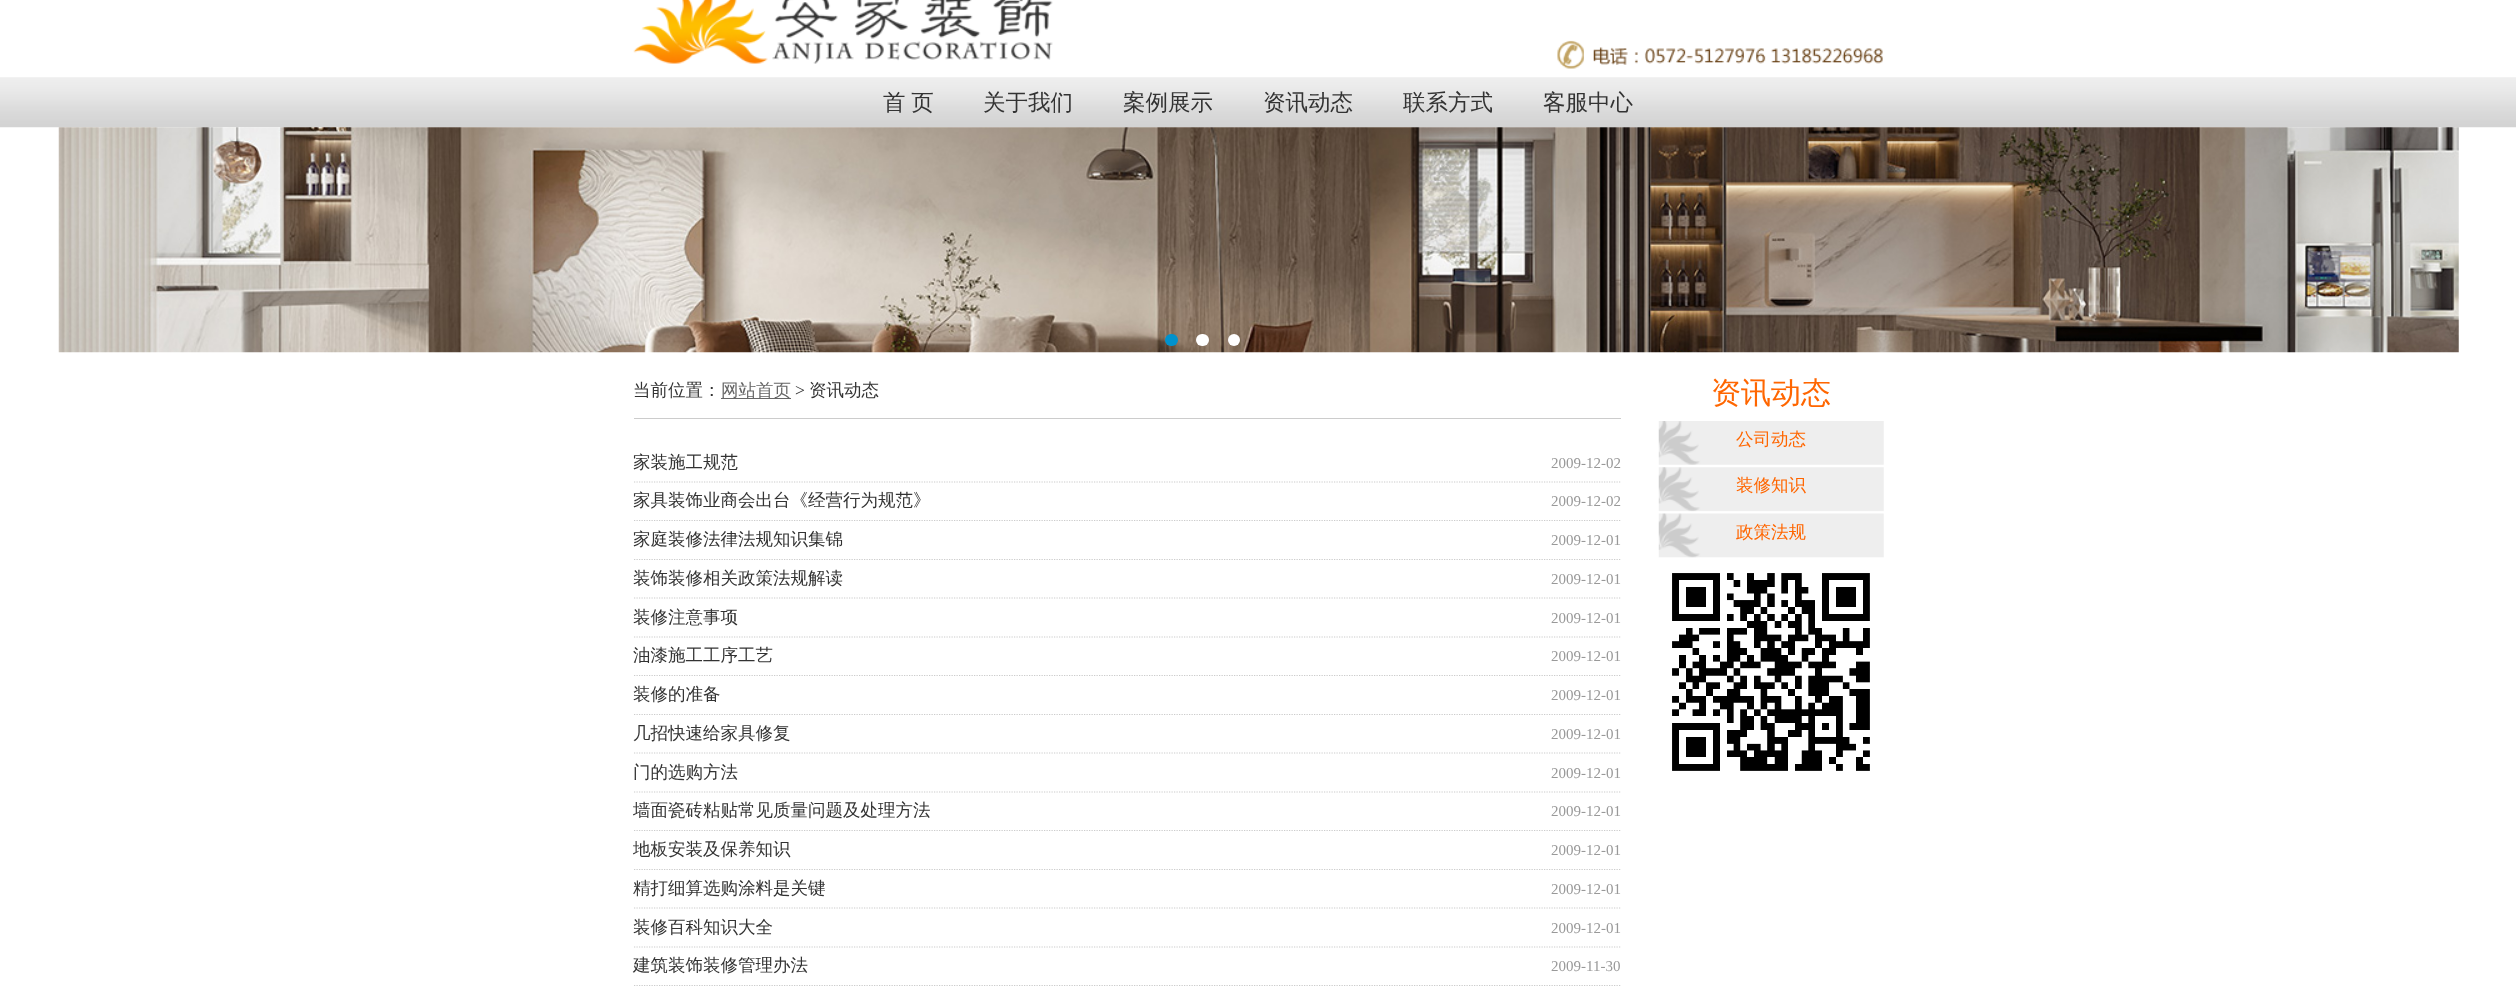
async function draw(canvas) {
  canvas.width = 2516
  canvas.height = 986
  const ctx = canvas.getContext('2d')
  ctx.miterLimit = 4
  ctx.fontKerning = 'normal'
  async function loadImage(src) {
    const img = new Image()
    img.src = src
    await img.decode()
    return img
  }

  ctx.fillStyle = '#fff'
  ctx.fillRect(0, 0, 2516, 986)
  ctx.drawImage(await loadImage('image0.png'), 633, 0, 1250, 69)
  ctx.drawImage(await loadImage('image1.png'), 0, 77, 2516, 51)
  ctx.wordSpacing = '-1px'
  ctx.font = '500 22.5px WenQuanYi Zen Hei'
  ctx.fillStyle = '#333'
  ctx.fillText('首 页', 883, 110)
  ctx.wordSpacing = '0px'
  ctx.fillText('关于我们', 983, 110)
  ctx.fillText('案例展示', 1123, 110)
  ctx.fillText('资讯动态', 1263, 110)
  ctx.fillText('联系方式', 1403, 110)
  ctx.fillText('客服中心', 1543, 110)
  ctx.drawImage(await loadImage('image2.png'), 58, 127, 2401, 226)
  ctx.fillStyle = '#0092ce'
  ctx.beginPath()
  ctx.roundRect(1165, 334, 13, 12, 6)
  ctx.fill()
  ctx.fillStyle = '#fff'
  ctx.beginPath()
  ctx.roundRect(1196, 334, 13, 12, 6)
  ctx.fill()
  ctx.beginPath()
  ctx.arc(1234, 340, 6, 0, 2 * Math.PI)
  ctx.fill()
  ctx.fillStyle = '#ccc'
  ctx.fillRect(634, 418, 987, 1)
  ctx.font = '500 17.5px WenQuanYi Zen Hei'
  ctx.fillStyle = '#333'
  ctx.fillText('当前位置：', 633, 396)
  ctx.fillStyle = '#666'
  ctx.fillRect(721, 398, 70, 1)
  ctx.fillText('网站首页', 721, 396)
  ctx.font = '17.5px Liberation Serif'
  ctx.fillStyle = '#333'
  ctx.fillText('>', 795, 396)
  ctx.font = '500 17.5px WenQuanYi Zen Hei'
  ctx.fillText('资讯动态', 809, 396)
  ctx.beginPath()
  ctx.moveTo(634, 482)
  ctx.lineTo(1621, 482)
  ctx.strokeStyle = '#ccc'
  ctx.lineWidth = 1.2
  ctx.setLineDash([1.25, 1.25])
  ctx.stroke()
  ctx.fillText('家装施工规范', 633, 468)
  ctx.font = '15px Liberation Serif'
  ctx.fillStyle = '#999'
  ctx.fillText('2009-12-02', 1551, 468)
  ctx.beginPath()
  ctx.moveTo(634, 520.5)
  ctx.lineTo(1621, 520.5)
  ctx.stroke()
  ctx.font = '500 17.5px WenQuanYi Zen Hei'
  ctx.fillStyle = '#333'
  ctx.fillText('家具装饰业商会出台《经营行为规范》', 633, 506)
  ctx.font = '15px Liberation Serif'
  ctx.fillStyle = '#999'
  ctx.fillText('2009-12-02', 1551, 506)
  ctx.beginPath()
  ctx.moveTo(634, 559.5)
  ctx.lineTo(1621, 559.5)
  ctx.stroke()
  ctx.font = '500 17.5px WenQuanYi Zen Hei'
  ctx.fillStyle = '#333'
  ctx.fillText('家庭装修法律法规知识集锦', 633, 545)
  ctx.font = '15px Liberation Serif'
  ctx.fillStyle = '#999'
  ctx.fillText('2009-12-01', 1551, 545)
  ctx.beginPath()
  ctx.moveTo(634, 598)
  ctx.lineTo(1621, 598)
  ctx.stroke()
  ctx.font = '500 17.5px WenQuanYi Zen Hei'
  ctx.fillStyle = '#333'
  ctx.fillText('装饰装修相关政策法规解读', 633, 584)
  ctx.font = '15px Liberation Serif'
  ctx.fillStyle = '#999'
  ctx.fillText('2009-12-01', 1551, 584)
  ctx.beginPath()
  ctx.moveTo(634, 637)
  ctx.lineTo(1621, 637)
  ctx.stroke()
  ctx.font = '500 17.5px WenQuanYi Zen Hei'
  ctx.fillStyle = '#333'
  ctx.fillText('装修注意事项', 633, 623)
  ctx.font = '15px Liberation Serif'
  ctx.fillStyle = '#999'
  ctx.fillText('2009-12-01', 1551, 623)
  ctx.beginPath()
  ctx.moveTo(634, 675.5)
  ctx.lineTo(1621, 675.5)
  ctx.stroke()
  ctx.font = '500 17.5px WenQuanYi Zen Hei'
  ctx.fillStyle = '#333'
  ctx.fillText('油漆施工工序工艺', 633, 661)
  ctx.font = '15px Liberation Serif'
  ctx.fillStyle = '#999'
  ctx.fillText('2009-12-01', 1551, 661)
  ctx.beginPath()
  ctx.moveTo(634, 714.5)
  ctx.lineTo(1621, 714.5)
  ctx.stroke()
  ctx.font = '500 17.5px WenQuanYi Zen Hei'
  ctx.fillStyle = '#333'
  ctx.fillText('装修的准备', 633, 700)
  ctx.font = '15px Liberation Serif'
  ctx.fillStyle = '#999'
  ctx.fillText('2009-12-01', 1551, 700)
  ctx.beginPath()
  ctx.moveTo(634, 753)
  ctx.lineTo(1621, 753)
  ctx.stroke()
  ctx.font = '500 17.5px WenQuanYi Zen Hei'
  ctx.fillStyle = '#333'
  ctx.fillText('几招快速给家具修复', 633, 739)
  ctx.font = '15px Liberation Serif'
  ctx.fillStyle = '#999'
  ctx.fillText('2009-12-01', 1551, 739)
  ctx.beginPath()
  ctx.moveTo(634, 792)
  ctx.lineTo(1621, 792)
  ctx.stroke()
  ctx.font = '500 17.5px WenQuanYi Zen Hei'
  ctx.fillStyle = '#333'
  ctx.fillText('门的选购方法', 633, 778)
  ctx.font = '15px Liberation Serif'
  ctx.fillStyle = '#999'
  ctx.fillText('2009-12-01', 1551, 778)
  ctx.beginPath()
  ctx.moveTo(634, 830.5)
  ctx.lineTo(1621, 830.5)
  ctx.stroke()
  ctx.font = '500 17.5px WenQuanYi Zen Hei'
  ctx.fillStyle = '#333'
  ctx.fillText('墙面瓷砖粘贴常见质量问题及处理方法', 633, 816)
  ctx.font = '15px Liberation Serif'
  ctx.fillStyle = '#999'
  ctx.fillText('2009-12-01', 1551, 816)
  ctx.beginPath()
  ctx.moveTo(634, 869.5)
  ctx.lineTo(1621, 869.5)
  ctx.stroke()
  ctx.font = '500 17.5px WenQuanYi Zen Hei'
  ctx.fillStyle = '#333'
  ctx.fillText('地板安装及保养知识', 633, 855)
  ctx.font = '15px Liberation Serif'
  ctx.fillStyle = '#999'
  ctx.fillText('2009-12-01', 1551, 855)
  ctx.beginPath()
  ctx.moveTo(634, 908)
  ctx.lineTo(1621, 908)
  ctx.stroke()
  ctx.font = '500 17.5px WenQuanYi Zen Hei'
  ctx.fillStyle = '#333'
  ctx.fillText('精打细算选购涂料是关键', 633, 894)
  ctx.font = '15px Liberation Serif'
  ctx.fillStyle = '#999'
  ctx.fillText('2009-12-01', 1551, 894)
  ctx.beginPath()
  ctx.moveTo(634, 947)
  ctx.lineTo(1621, 947)
  ctx.stroke()
  ctx.font = '500 17.5px WenQuanYi Zen Hei'
  ctx.fillStyle = '#333'
  ctx.fillText('装修百科知识大全', 633, 933)
  ctx.font = '15px Liberation Serif'
  ctx.fillStyle = '#999'
  ctx.fillText('2009-12-01', 1551, 933)
  ctx.beginPath()
  ctx.moveTo(634, 985.5)
  ctx.lineTo(1621, 985.5)
  ctx.stroke()
  ctx.font = '500 17.5px WenQuanYi Zen Hei'
  ctx.fillStyle = '#333'
  ctx.fillText('建筑装饰装修管理办法', 633, 971)
  ctx.font = '15px Liberation Serif'
  ctx.fillStyle = '#999'
  ctx.fillText('2009-11-30', 1551, 971)
  ctx.font = '500 30px WenQuanYi Zen Hei'
  ctx.fillStyle = '#f60'
  ctx.fillText('资讯动态', 1711, 403)
  ctx.drawImage(await loadImage('image3.png'), 1658, 421, 226, 44)
  ctx.font = '500 17.5px WenQuanYi Zen Hei'
  ctx.fillText('公司动态', 1736, 445)
  ctx.drawImage(await loadImage('image4.png'), 1658, 467, 226, 45)
  ctx.fillText('装修知识', 1736, 491)
  ctx.drawImage(await loadImage('image5.png'), 1658, 513, 226, 45)
  ctx.fillText('政策法规', 1736, 538)
  ctx.drawImage(await loadImage('image6.png'), 1672, 573, 198, 198)
}

draw(document.querySelector('canvas'))
